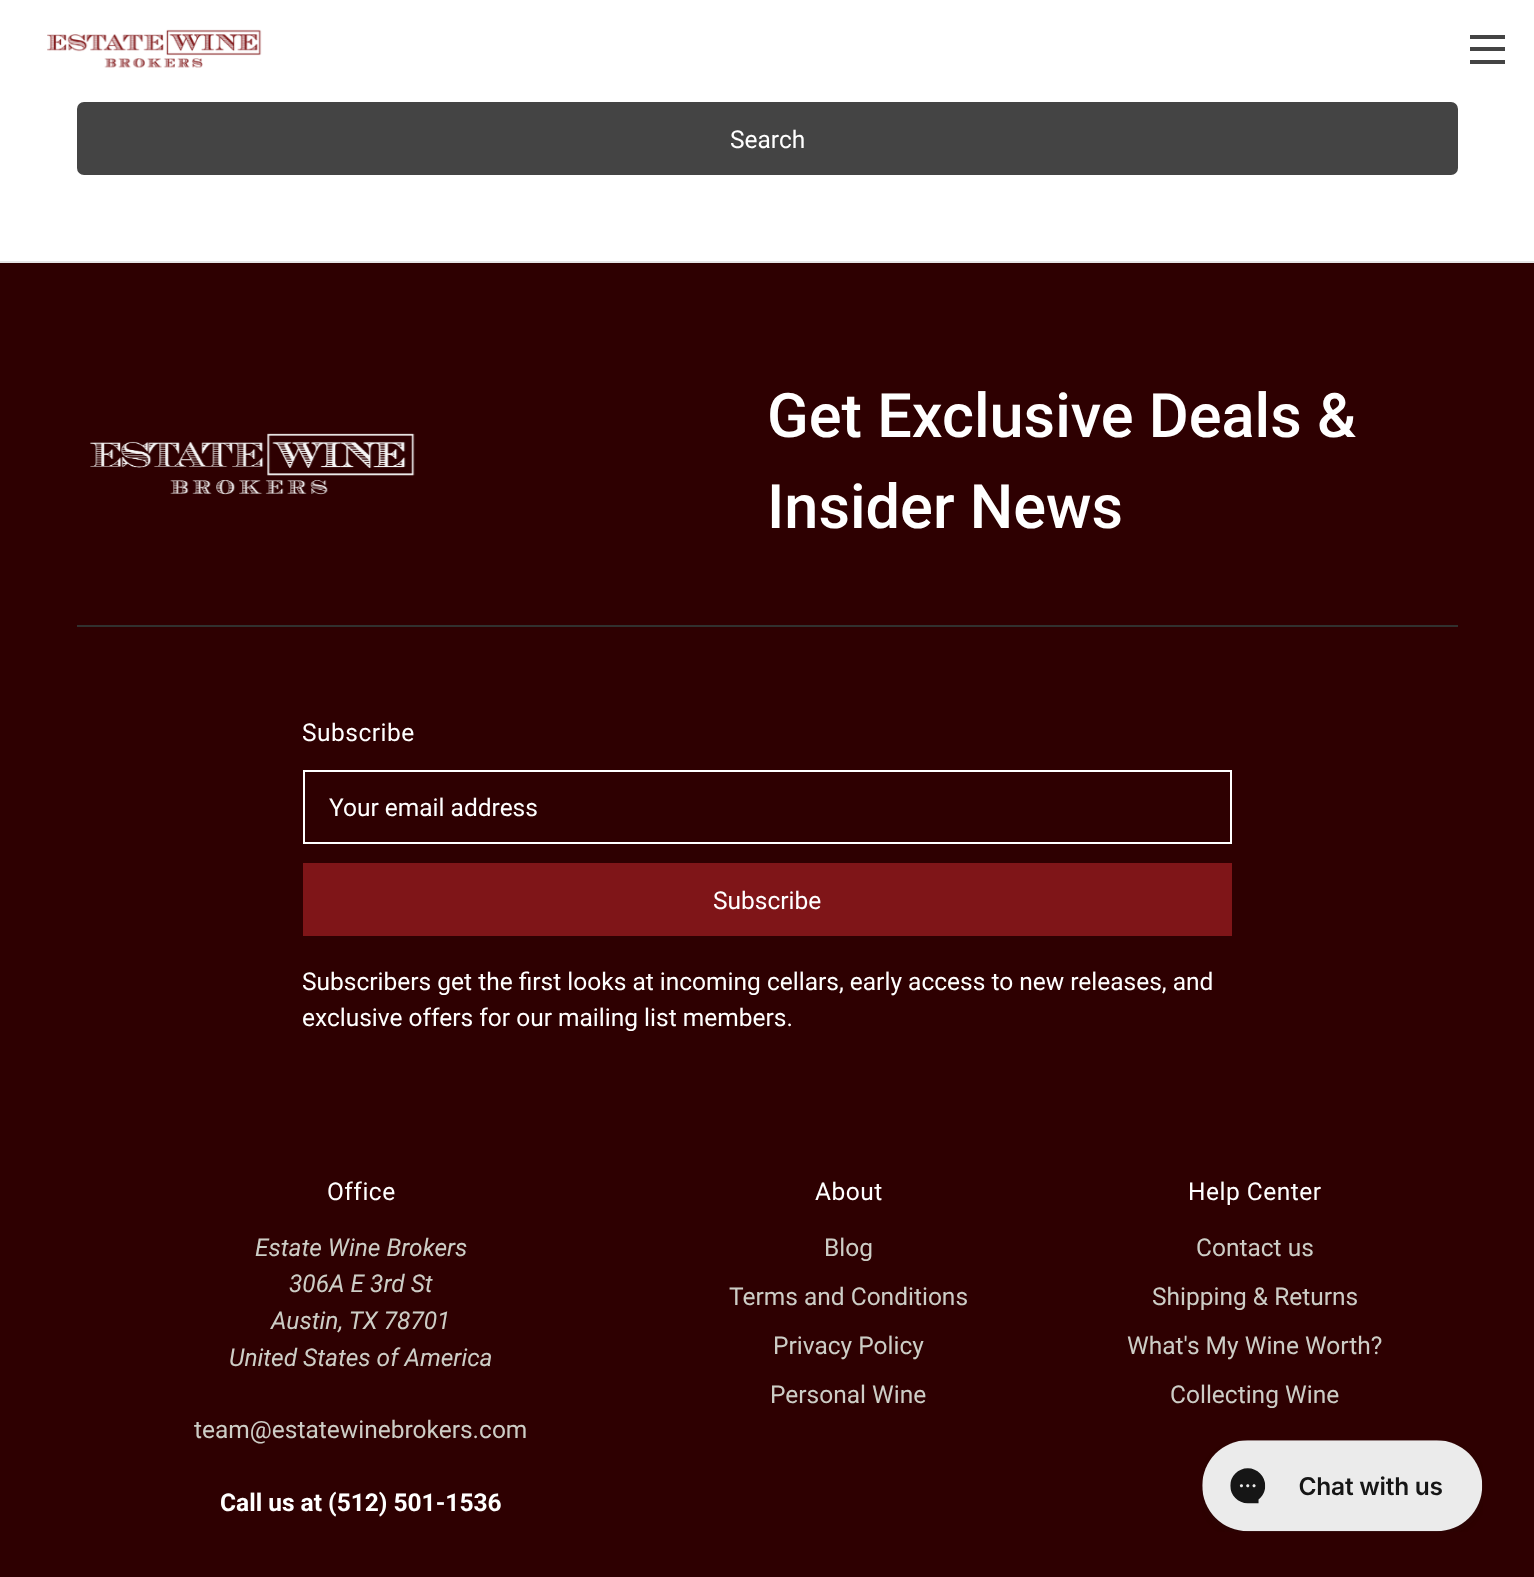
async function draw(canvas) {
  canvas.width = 1534
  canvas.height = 1577
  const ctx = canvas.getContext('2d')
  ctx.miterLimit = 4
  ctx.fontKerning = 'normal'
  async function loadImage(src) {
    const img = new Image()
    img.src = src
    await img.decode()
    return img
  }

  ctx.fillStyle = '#fff'
  ctx.fillRect(0, 0, 1534, 1577)
  ctx.drawImage(await loadImage('image0.png'), 47, 29, 215, 39)
  ctx.fillStyle = '#444'
  ctx.fillRect(1470, 47, 35, 4)
  ctx.fillRect(1470, 35, 35, 4)
  ctx.fillRect(1470, 60, 35, 4)
  ctx.beginPath()
  ctx.roundRect(78, 103, 1379, 71, 6)
  ctx.fill()
  ctx.strokeStyle = '#444'
  ctx.lineWidth = 2
  ctx.stroke()
  ctx.font = '24.5px Roboto'
  ctx.fillStyle = '#fff'
  ctx.fillText('Search', 730, 148)
  ctx.fillStyle = '#2e0001'
  ctx.fillRect(0, 263, 1534, 1314)
  ctx.fillStyle = '#e5e5e5'
  ctx.fillRect(0, 261, 1534, 2)
  ctx.fillStyle = '#31312f'
  ctx.fillRect(77, 625, 1381, 2)
  ctx.drawImage(await loadImage('image1.png'), 90, 433, 325, 62)
  ctx.font = '500 61.25px Roboto'
  ctx.fillStyle = '#fff'
  ctx.fillText('Get Exclusive Deals &', 767, 437)
  ctx.fillText('Insider News', 767, 528)
  ctx.letterSpacing = '0.5px'
  ctx.font = '24.5px Roboto'
  ctx.fillText('Subscribe', 302, 741)
  ctx.strokeStyle = '#fff'
  ctx.strokeRect(304, 771, 927, 72)
  ctx.letterSpacing = '0px'
  ctx.fillText('Your email address', 329, 816)
  ctx.fillStyle = '#7f1518'
  ctx.fillRect(303, 863, 929, 73)
  ctx.fillStyle = '#fff'
  ctx.fillText('Subscribe', 713, 909)
  ctx.fillText('Subscribers get the first looks at incoming cellars, early access to new releases, and', 302, 990)
  ctx.fillText('exclusive offers for our mailing list members.', 302, 1026)
  ctx.letterSpacing = '0.5px'
  ctx.fillText('Office', 327, 1200)
  ctx.letterSpacing = '0px'
  ctx.font = 'italic 24.5px Roboto'
  ctx.fillStyle = '#cdcdc6'
  ctx.fillText('Estate Wine Brokers', 255, 1256)
  ctx.fillText('306A E 3rd St', 289, 1292)
  ctx.fillText('Austin, TX 78701', 271, 1329)
  ctx.fillText('United States of America', 229, 1366)
  ctx.font = '24.5px Roboto'
  ctx.fillText('team@estatewinebrokers.com', 194, 1438)
  ctx.font = 'bold 24.5px Roboto'
  ctx.fillStyle = '#fff'
  ctx.fillText('Call us at (512) 501-1536', 220, 1511)
  ctx.letterSpacing = '0.5px'
  ctx.font = '24.5px Roboto'
  ctx.fillText('About', 815, 1200)
  ctx.letterSpacing = '0px'
  ctx.fillStyle = '#cdcdc6'
  ctx.fillText('Blog', 824, 1256)
  ctx.fillText('Terms and Conditions', 729, 1305)
  ctx.fillText('Privacy Policy', 773, 1354)
  ctx.fillText('Personal Wine', 770, 1403)
  ctx.letterSpacing = '0.5px'
  ctx.fillStyle = '#fff'
  ctx.fillText('Help Center', 1188, 1200)
  ctx.letterSpacing = '0px'
  ctx.fillStyle = '#cdcdc6'
  ctx.fillText('Contact us', 1196, 1256)
  ctx.fillText('Shipping & Returns', 1152, 1305)
  ctx.fillText('What\'s My Wine Worth?', 1127, 1354)
  ctx.fillText('Collecting Wine', 1170, 1403)
  ctx.drawImage(await loadImage('image2.png'), 1202, 1440, 281, 92)
}

draw(document.querySelector('canvas'))
